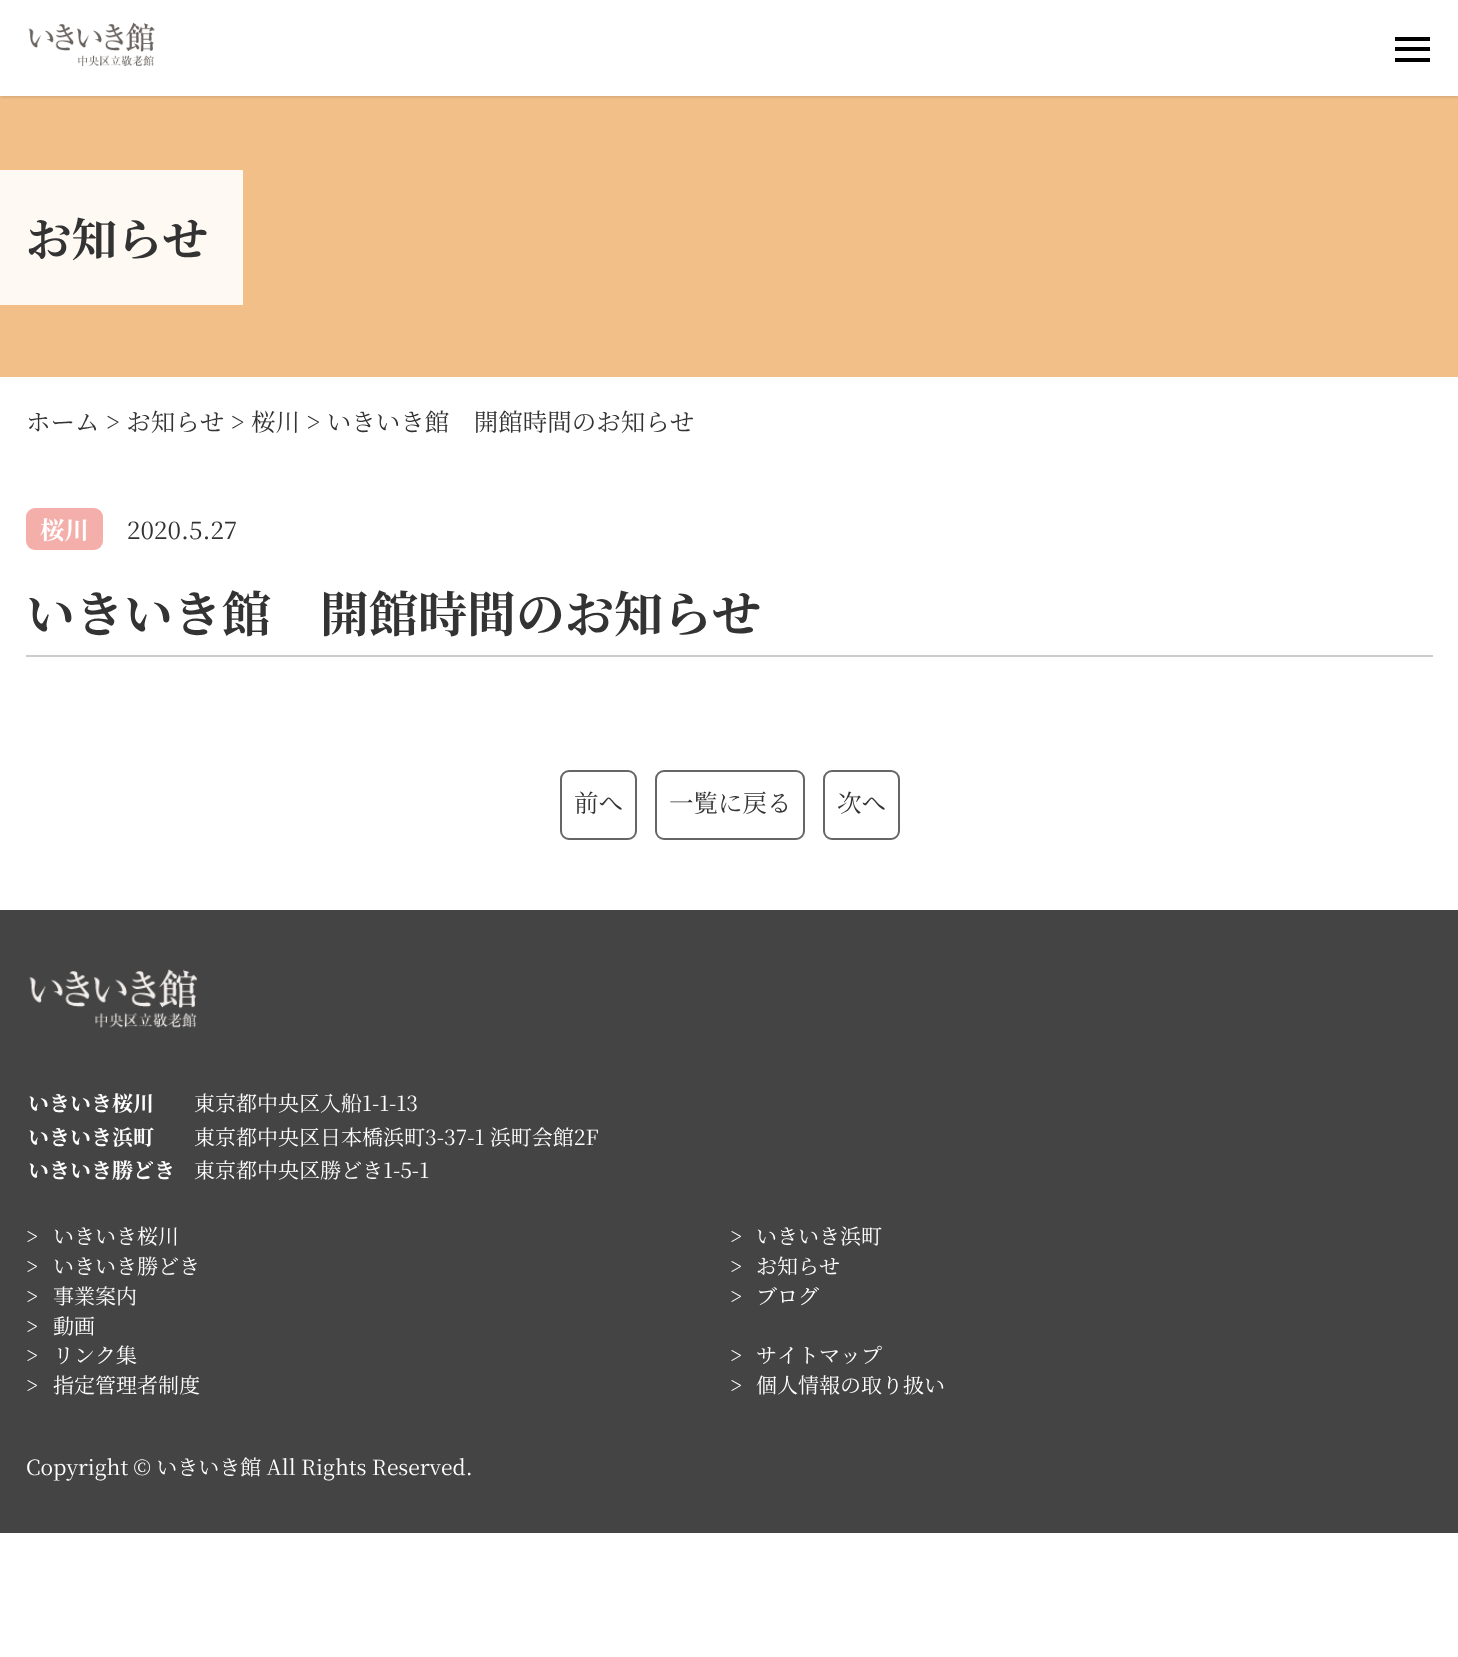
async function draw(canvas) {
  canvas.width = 1458
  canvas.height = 1657
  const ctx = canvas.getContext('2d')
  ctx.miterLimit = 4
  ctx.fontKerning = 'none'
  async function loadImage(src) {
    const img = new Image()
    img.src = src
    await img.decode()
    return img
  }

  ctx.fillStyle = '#fff'
  ctx.fillRect(0, 0, 1458, 1657)
  ctx.fillStyle = '#f2bf88'
  ctx.fillRect(0, 96, 1458, 281)
  ctx.save()
  ctx.beginPath()
  ctx.rect(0, 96, 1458, 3)
  ctx.clip()
  ctx.fillStyle = '#00000033'
  ctx.filter = 'blur(2.5px)'
  ctx.beginPath()
  ctx.rect(0, 0, 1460, 96)
  ctx.fill()
  ctx.filter = 'none'
  ctx.restore()
  ctx.drawImage(await loadImage('image0.png'), 28, 22, 127, 44)
  ctx.fillStyle = '#000'
  ctx.fillRect(1395, 37, 35, 4)
  ctx.fillRect(1395, 47, 35, 4)
  ctx.fillRect(1395, 58, 35, 4)
  ctx.fillStyle = '#fef9f3'
  ctx.fillRect(0, 170, 243, 135)
  ctx.font = 'bold 45.5px Noto Serif JP'
  ctx.fillStyle = '#333'
  ctx.fillText('お知らせ', 26, 256)
  ctx.font = '24.5px Noto Serif JP'
  ctx.fillText('ホーム > お知らせ > 桜川 > いきいき館　開館時間のお知らせ', 26, 431)
  ctx.fillStyle = '#f4afab'
  ctx.beginPath()
  ctx.roundRect(26, 508, 77, 42, 9)
  ctx.fill()
  ctx.font = 'bold 24.5px Noto Serif JP'
  ctx.fillStyle = '#fff'
  ctx.fillText('桜川', 40, 539)
  ctx.font = '24.5px Noto Serif JP'
  ctx.fillStyle = '#333'
  ctx.fillText('2020.5.27', 127, 539)
  ctx.fillStyle = '#ccc'
  ctx.fillRect(26, 655, 1407, 2)
  ctx.font = 'bold 49px Noto Serif JP'
  ctx.fillStyle = '#333'
  ctx.fillText('いきいき館　開館時間のお知らせ', 26, 632)
  ctx.beginPath()
  ctx.roundRect(561, 771, 75, 68, 8)
  ctx.strokeStyle = '#666'
  ctx.lineWidth = 2
  ctx.stroke()
  ctx.font = '24.5px Noto Serif JP'
  ctx.fillText('前へ', 574, 812)
  ctx.beginPath()
  ctx.roundRect(656, 771, 148, 68, 8)
  ctx.stroke()
  ctx.fillText('一覧に戻る', 669, 812)
  ctx.beginPath()
  ctx.roundRect(824, 771, 75, 68, 8)
  ctx.stroke()
  ctx.fillText('次へ', 837, 812)
  ctx.fillStyle = '#444'
  ctx.fillRect(0, 910, 1458, 623)
  ctx.drawImage(await loadImage('image1.png'), 29, 969, 169, 59)
  ctx.font = 'bold 21px Noto Serif JP'
  ctx.fillStyle = '#fff'
  ctx.fillText('いきいき桜川', 28, 1111)
  ctx.font = '21px Noto Serif JP'
  ctx.fillText('東京都中央区入船1-1-13', 194, 1111)
  ctx.font = 'bold 21px Noto Serif JP'
  ctx.fillText('いきいき浜町', 28, 1145)
  ctx.font = '21px Noto Serif JP'
  ctx.fillText('東京都中央区日本橋浜町3-37-1 浜町会館2F', 194, 1145)
  ctx.font = 'bold 21px Noto Serif JP'
  ctx.fillText('いきいき勝どき', 28, 1178)
  ctx.font = '21px Noto Serif JP'
  ctx.fillText('東京都中央区勝どき1-5-1', 194, 1178)
  ctx.fillText('>', 26, 1244)
  ctx.fillText('いきいき桜川', 53, 1244)
  ctx.fillText('>', 730, 1244)
  ctx.fillText('いきいき浜町', 756, 1244)
  ctx.fillText('>', 26, 1274)
  ctx.fillText('いきいき勝どき', 53, 1274)
  ctx.fillText('>', 730, 1274)
  ctx.fillText('お知らせ', 756, 1274)
  ctx.fillText('>', 26, 1304)
  ctx.fillText('事業案内', 53, 1304)
  ctx.fillText('>', 730, 1304)
  ctx.fillText('ブログ', 756, 1304)
  ctx.fillText('>', 26, 1334)
  ctx.fillText('動画', 53, 1334)
  ctx.fillText('>', 26, 1363)
  ctx.fillText('リンク集', 53, 1363)
  ctx.fillText('>', 730, 1363)
  ctx.fillText('サイトマップ', 756, 1363)
  ctx.fillText('>', 26, 1393)
  ctx.fillText('指定管理者制度', 53, 1393)
  ctx.fillText('>', 730, 1393)
  ctx.fillText('個人情報の取り扱い', 756, 1393)
  ctx.fillText('Copyright © いきいき館 All Rights Reserved.', 26, 1475)
}

draw(document.querySelector('canvas'))
